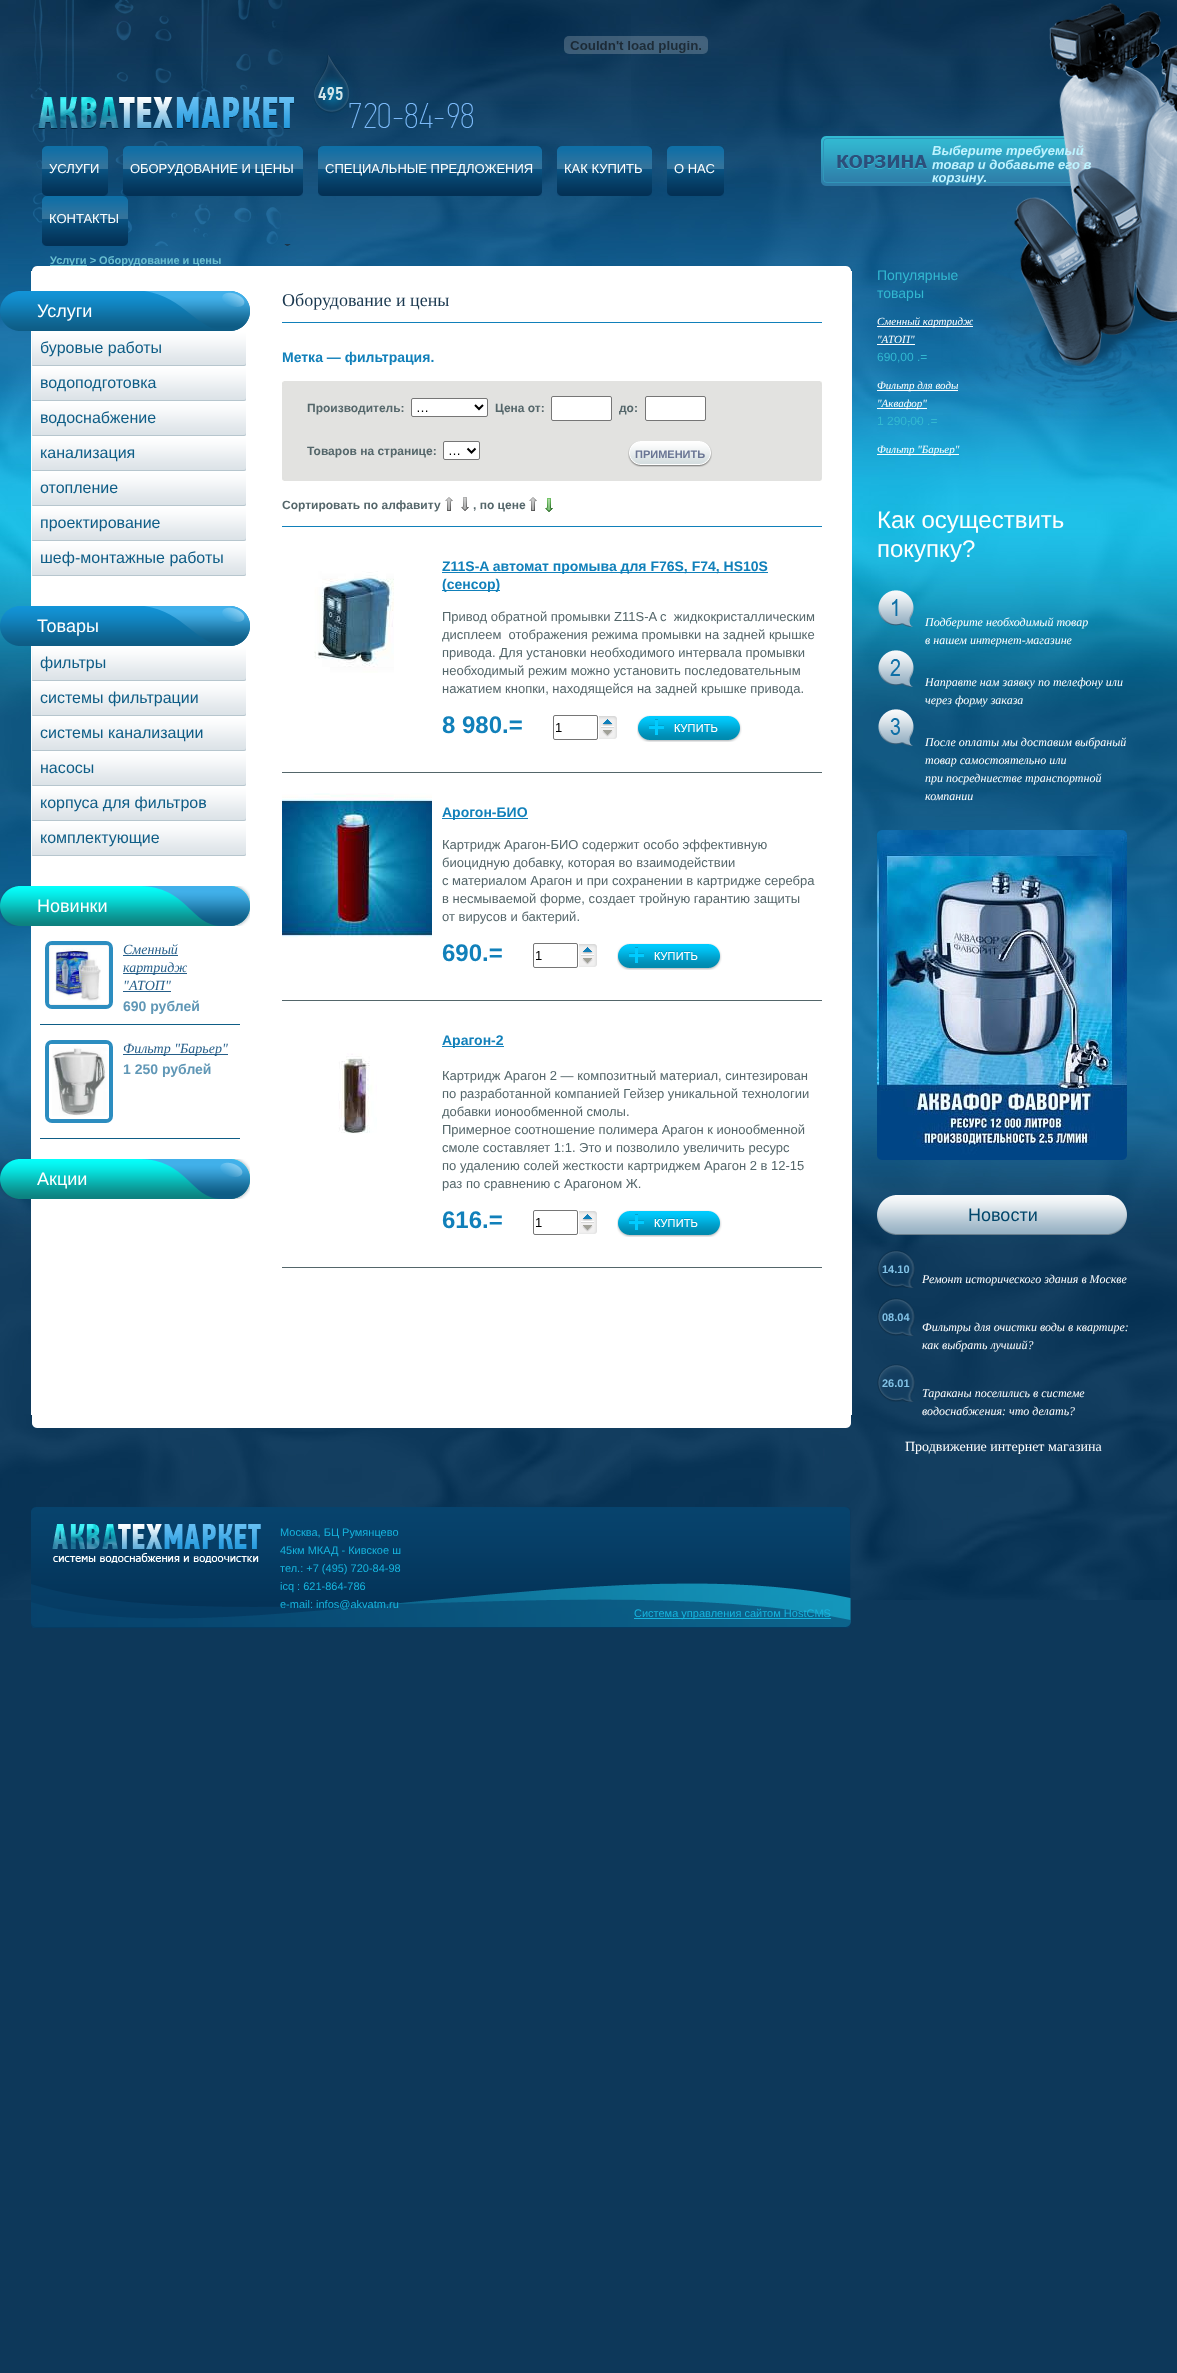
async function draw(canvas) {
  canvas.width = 1177
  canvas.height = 2373
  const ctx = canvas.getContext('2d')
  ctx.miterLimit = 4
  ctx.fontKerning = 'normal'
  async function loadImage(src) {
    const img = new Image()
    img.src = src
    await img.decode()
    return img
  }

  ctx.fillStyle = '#0d385a'
  ctx.fillRect(0, 0, 1177, 2373)
  ctx.drawImage(await loadImage('image0.png'), 0, 0, 1177, 1600)
  ctx.drawImage(await loadImage('image1.png'), 821, 3, 356, 419)
  ctx.drawImage(await loadImage('image2.png'), 30, 0, 261, 246)
  ctx.drawImage(await loadImage('image3.png'), 564, 36, 144, 18)
  ctx.drawImage(await loadImage('image4.png'), 38, 97, 256, 32)
  ctx.drawImage(await loadImage('image5.png'), 314, 55, 159, 73)
  ctx.drawImage(await loadImage('image6.png'), 42, 146, 10, 50)
  ctx.drawImage(await loadImage('image7.png'), 99, 146, 9, 50)
  ctx.drawImage(await loadImage('image8.png'), 52, 146, 47, 50)
  ctx.font = '13px Liberation Sans'
  ctx.fillStyle = '#fff'
  ctx.fillText('УСЛУГИ', 49, 173)
  ctx.drawImage(await loadImage('image9.png'), 123, 146, 10, 50)
  ctx.drawImage(await loadImage('image10.png'), 294, 146, 9, 50)
  ctx.drawImage(await loadImage('image11.png'), 133, 146, 161, 50)
  ctx.fillText('ОБОРУДОВАНИЕ И ЦЕНЫ', 130, 173)
  ctx.drawImage(await loadImage('image12.png'), 318, 146, 10, 50)
  ctx.drawImage(await loadImage('image13.png'), 533, 146, 9, 50)
  ctx.drawImage(await loadImage('image14.png'), 328, 146, 205, 50)
  ctx.fillText('СПЕЦИАЛЬНЫЕ ПРЕДЛОЖЕНИЯ', 325, 173)
  ctx.drawImage(await loadImage('image15.png'), 557, 146, 10, 50)
  ctx.drawImage(await loadImage('image16.png'), 643, 146, 9, 50)
  ctx.drawImage(await loadImage('image17.png'), 567, 146, 76, 50)
  ctx.fillText('КАК КУПИТЬ', 564, 173)
  ctx.drawImage(await loadImage('image18.png'), 667, 146, 10, 50)
  ctx.drawImage(await loadImage('image19.png'), 715, 146, 9, 50)
  ctx.drawImage(await loadImage('image20.png'), 677, 146, 38, 50)
  ctx.fillText('О НАС', 674, 173)
  ctx.drawImage(await loadImage('image21.png'), 42, 196, 10, 50)
  ctx.drawImage(await loadImage('image22.png'), 119, 196, 9, 50)
  ctx.drawImage(await loadImage('image23.png'), 52, 196, 67, 50)
  ctx.fillText('КОНТАКТЫ', 49, 223)
  ctx.font = 'italic bold 13px Liberation Sans'
  ctx.fillStyle = '#bef3ff'
  ctx.fillText('Выберите требуемый', 932, 155)
  ctx.fillText('товар и добавьте его в', 932, 169)
  ctx.fillText('корзину.', 932, 182)
  ctx.fillStyle = '#6bc0d1'
  ctx.fillRect(50, 265, 37, 1)
  ctx.font = 'bold 11px Liberation Sans'
  ctx.fillText('Услуги > Оборудование и цены', 50, 264)
  ctx.drawImage(await loadImage('image24.png'), 31, 266, 821, 5)
  ctx.drawImage(await loadImage('image25.png'), 32, 1415, 819, 13)
  ctx.fillStyle = '#fff'
  ctx.fillRect(31, 271, 821, 1144)
  ctx.drawImage(await loadImage('image26.png'), 0, 291, 250, 40)
  ctx.font = '18px Liberation Sans'
  ctx.fillText('Услуги', 37, 317)
  ctx.drawImage(await loadImage('image27.png'), 32, 332, 214, 34)
  ctx.font = '16px Liberation Sans'
  ctx.fillStyle = '#0e5d86'
  ctx.fillText('буровые работы', 40, 353)
  ctx.drawImage(await loadImage('image27.png'), 32, 367, 214, 34)
  ctx.fillText('водоподготовка', 40, 388)
  ctx.drawImage(await loadImage('image27.png'), 32, 402, 214, 34)
  ctx.fillText('водоснабжение', 40, 423)
  ctx.drawImage(await loadImage('image27.png'), 32, 437, 214, 34)
  ctx.fillText('канализация', 40, 458)
  ctx.drawImage(await loadImage('image27.png'), 32, 472, 214, 34)
  ctx.fillText('отопление', 40, 493)
  ctx.drawImage(await loadImage('image27.png'), 32, 507, 214, 34)
  ctx.fillText('проектирование', 40, 528)
  ctx.drawImage(await loadImage('image27.png'), 32, 542, 214, 34)
  ctx.fillText('шеф-монтажные работы', 40, 563)
  ctx.drawImage(await loadImage('image28.png'), 0, 606, 250, 40)
  ctx.font = '18px Liberation Sans'
  ctx.fillStyle = '#fff'
  ctx.fillText('Товары', 37, 632)
  ctx.drawImage(await loadImage('image27.png'), 32, 647, 214, 34)
  ctx.font = '16px Liberation Sans'
  ctx.fillStyle = '#0e5d86'
  ctx.fillText('фильтры', 40, 668)
  ctx.drawImage(await loadImage('image27.png'), 32, 682, 214, 34)
  ctx.fillText('системы фильтрации', 40, 703)
  ctx.drawImage(await loadImage('image27.png'), 32, 717, 214, 34)
  ctx.fillText('системы канализации', 40, 738)
  ctx.drawImage(await loadImage('image27.png'), 32, 752, 214, 34)
  ctx.fillText('насосы', 40, 773)
  ctx.drawImage(await loadImage('image27.png'), 32, 787, 214, 34)
  ctx.fillText('корпуса для фильтров', 40, 808)
  ctx.drawImage(await loadImage('image27.png'), 32, 822, 214, 34)
  ctx.fillText('комплектующие', 40, 843)
  ctx.drawImage(await loadImage('image29.png'), 0, 886, 250, 40)
  ctx.font = '18px Liberation Sans'
  ctx.fillStyle = '#fff'
  ctx.fillText('Новинки', 37, 912)
  ctx.fillStyle = '#0e5d86'
  ctx.fillRect(40, 1024, 200, 1)
  ctx.beginPath()
  ctx.roundRect(47, 943, 64, 64, 5)
  ctx.strokeStyle = '#2c8dc0'
  ctx.lineWidth = 4
  ctx.stroke()
  ctx.drawImage(await loadImage('image30.png'), 49, 945, 60, 60)
  ctx.font = 'italic 14px Liberation Serif'
  ctx.fillStyle = '#255e89'
  ctx.fillText('Сменный', 123, 954)
  ctx.fillRect(123, 955, 55, 1)
  ctx.fillRect(123, 973, 64, 1)
  ctx.fillText('картридж', 123, 972)
  ctx.fillText('"АТОП"', 123, 990)
  ctx.fillRect(123, 991, 48, 1)
  ctx.font = 'bold 14px Liberation Sans'
  ctx.fillStyle = '#6097b6'
  ctx.fillText('690 рублей', 123, 1011)
  ctx.fillStyle = '#0e5d86'
  ctx.fillRect(40, 1138, 200, 1)
  ctx.beginPath()
  ctx.roundRect(47, 1042, 64, 79, 5)
  ctx.stroke()
  ctx.drawImage(await loadImage('image31.png'), 49, 1044, 60, 75)
  ctx.fillStyle = '#255e89'
  ctx.fillRect(123, 1054, 105, 1)
  ctx.font = 'italic 14px Liberation Serif'
  ctx.fillText('Фильтр "Барьер"', 123, 1053)
  ctx.font = 'bold 14px Liberation Sans'
  ctx.fillStyle = '#6097b6'
  ctx.fillText('1 250 рублей', 123, 1074)
  ctx.drawImage(await loadImage('image32.png'), 0, 1159, 250, 40)
  ctx.font = '18px Liberation Sans'
  ctx.fillStyle = '#fff'
  ctx.fillText('Акции', 37, 1185)
  ctx.fillStyle = '#1180ba'
  ctx.fillRect(282, 322, 540, 1)
  ctx.font = '18px Liberation Serif'
  ctx.fillStyle = '#1a384f'
  ctx.fillText('Оборудование и цены', 282, 306)
  ctx.font = 'bold 14px Liberation Sans'
  ctx.fillStyle = '#1180ba'
  ctx.fillText('Метка — фильтрация.', 282, 362)
  ctx.fillStyle = '#e2e2e0'
  ctx.fillRect(284, 381, 536, 100)
  ctx.drawImage(await loadImage('image33.png'), 282, 381, 2, 100)
  ctx.drawImage(await loadImage('image34.png'), 820, 381, 2, 100)
  ctx.font = 'bold 12px Liberation Sans'
  ctx.fillStyle = '#54666a'
  ctx.fillText('Производитель:', 307, 412)
  ctx.fillStyle = '#fff'
  ctx.beginPath()
  ctx.roundRect(411.5, 398.5, 76, 18, 1.5)
  ctx.fill()
  ctx.strokeStyle = '#767676'
  ctx.lineWidth = 1
  ctx.stroke()
  ctx.beginPath()
  ctx.moveTo(475, 405)
  ctx.lineTo(479, 409)
  ctx.lineTo(483, 405)
  ctx.strokeStyle = '#000'
  ctx.lineWidth = 2
  ctx.stroke()
  ctx.font = '13px Liberation Sans'
  ctx.fillStyle = '#000'
  ctx.fillText('…', 416, 412)
  ctx.font = 'bold 12px Liberation Sans'
  ctx.fillStyle = '#54666a'
  ctx.fillText('Цена от:', 495, 412)
  ctx.fillStyle = '#fff'
  ctx.beginPath()
  ctx.roundRect(551.5, 396.5, 60, 24, 1.5)
  ctx.fill()
  ctx.strokeStyle = '#767676'
  ctx.lineWidth = 1
  ctx.stroke()
  ctx.fillStyle = '#54666a'
  ctx.fillText('до:', 619, 412)
  ctx.fillStyle = '#fff'
  ctx.beginPath()
  ctx.roundRect(645.5, 396.5, 60, 24, 1.5)
  ctx.fill()
  ctx.stroke()
  ctx.fillStyle = '#54666a'
  ctx.fillText('Товаров на странице:', 307, 455)
  ctx.fillStyle = '#fff'
  ctx.beginPath()
  ctx.roundRect(443.5, 441.5, 36, 18, 1.5)
  ctx.fill()
  ctx.stroke()
  ctx.beginPath()
  ctx.moveTo(467.5, 448.5)
  ctx.lineTo(471.5, 452.5)
  ctx.lineTo(475.5, 448.5)
  ctx.strokeStyle = '#000'
  ctx.lineWidth = 2
  ctx.stroke()
  ctx.font = '13px Liberation Sans'
  ctx.fillStyle = '#000'
  ctx.fillText('…', 448, 455)
  ctx.drawImage(await loadImage('image35.png'), 628, 441, 84, 26)
  ctx.font = 'bold 11px Liberation Sans'
  ctx.fillStyle = '#6a7594'
  ctx.fillText('ПРИМЕНИТЬ', 635, 458)
  ctx.fillStyle = '#1180ba'
  ctx.fillRect(282, 526, 540, 1)
  ctx.font = 'bold 12px Liberation Sans'
  ctx.fillStyle = '#54666a'
  ctx.fillText('Сортировать по алфавиту', 282, 509)
  ctx.drawImage(await loadImage('image36.png'), 445, 497, 8, 14)
  ctx.drawImage(await loadImage('image37.png'), 461, 497, 8, 14)
  ctx.fillText(', по цене', 473, 509)
  ctx.drawImage(await loadImage('image36.png'), 529, 497, 8, 14)
  ctx.drawImage(await loadImage('image38.png'), 545, 498, 8, 14)
  ctx.fillRect(282, 772, 540, 1)
  ctx.drawImage(await loadImage('image39.png'), 314, 571, 80, 102)
  ctx.fillStyle = '#1180ba'
  ctx.fillRect(442, 572, 326, 1)
  ctx.font = 'bold 14px Liberation Sans'
  ctx.fillText('Z11S-A автомат промыва для F76S, F74, HS10S', 442, 571)
  ctx.fillRect(442, 590, 58, 1)
  ctx.fillText('(сенсор)', 442, 589)
  ctx.font = '13px Liberation Sans'
  ctx.fillStyle = '#54666a'
  ctx.fillText('Привод обратной промывки Z11S-A с  жидкокристаллическим', 442, 621)
  ctx.fillText('дисплеем  отображения режима промывки на задней крышке', 442, 639)
  ctx.fillText('привода. Для установки необходимого интервала промывки', 442, 657)
  ctx.fillText('необходимый режим можно установить последовательным', 442, 675)
  ctx.fillText('нажатием кнопки, находящейся на задней крышке привода.', 442, 693)
  ctx.font = 'bold 24px Liberation Sans'
  ctx.fillStyle = '#1180ba'
  ctx.fillText('8 980.=', 442, 733)
  ctx.beginPath()
  ctx.roundRect(553.5, 715.5, 44, 24, 1.5)
  ctx.strokeStyle = '#767676'
  ctx.lineWidth = 1
  ctx.stroke()
  ctx.font = '13px Liberation Sans'
  ctx.fillStyle = '#000'
  ctx.fillText('1', 555, 732)
  ctx.drawImage(await loadImage('image40.png'), 599, 716, 18, 23)
  ctx.drawImage(await loadImage('image41.png'), 637, 715, 105, 27)
  ctx.fillStyle = '#54666a'
  ctx.fillRect(282, 1000, 540, 1)
  ctx.drawImage(await loadImage('image42.png'), 282, 793, 150, 145)
  ctx.fillStyle = '#1180ba'
  ctx.fillRect(442, 818, 86, 1)
  ctx.font = 'bold 14px Liberation Sans'
  ctx.fillText('Арогон-БИО', 442, 817)
  ctx.font = '13px Liberation Sans'
  ctx.fillStyle = '#54666a'
  ctx.fillText('Картридж Арагон-БИО содержит особо эффективную', 442, 849)
  ctx.fillText('биоцидную добавку, которая во взаимодействии', 442, 867)
  ctx.fillText('с материалом Арагон и при сохранении в картридже серебра', 442, 885)
  ctx.fillText('в несмываемой форме, создает тройную гарантию защиты', 442, 903)
  ctx.fillText('от вирусов и бактерий.', 442, 921)
  ctx.font = 'bold 24px Liberation Sans'
  ctx.fillStyle = '#1180ba'
  ctx.fillText('690.=', 442, 961)
  ctx.beginPath()
  ctx.roundRect(533.5, 943.5, 44, 24, 1.5)
  ctx.stroke()
  ctx.font = '13px Liberation Sans'
  ctx.fillStyle = '#000'
  ctx.fillText('1', 535, 960)
  ctx.drawImage(await loadImage('image40.png'), 579, 944, 18, 23)
  ctx.drawImage(await loadImage('image41.png'), 617, 943, 105, 27)
  ctx.fillStyle = '#54666a'
  ctx.fillRect(282, 1267, 540, 1)
  ctx.drawImage(await loadImage('image43.png'), 338, 1053, 39, 81)
  ctx.fillStyle = '#1180ba'
  ctx.fillRect(442, 1046, 62, 1)
  ctx.font = 'bold 14px Liberation Sans'
  ctx.fillText('Арагон-2', 442, 1045)
  ctx.font = '13px Liberation Sans'
  ctx.fillStyle = '#54666a'
  ctx.fillText('Картридж Арагон 2 — композитный материал, синтезирован', 442, 1080)
  ctx.fillText('по разработанной компанией Гейзер уникальной технологии', 442, 1098)
  ctx.fillText('добавки ионообменной смолы.', 442, 1116)
  ctx.fillText('Примерное соотношение полимера Арагон к ионообменной', 442, 1134)
  ctx.fillText('смоле составляет 1:1. Это и позволило увеличить ресурс', 442, 1152)
  ctx.fillText('по удалению солей жесткости картриджем Арагон 2 в 12-15', 442, 1170)
  ctx.fillText('раз по сравнению с Арагоном Ж.', 442, 1188)
  ctx.font = 'bold 24px Liberation Sans'
  ctx.fillStyle = '#1180ba'
  ctx.fillText('616.=', 442, 1228)
  ctx.beginPath()
  ctx.roundRect(533.5, 1210.5, 44, 24, 1.5)
  ctx.stroke()
  ctx.font = '13px Liberation Sans'
  ctx.fillStyle = '#000'
  ctx.fillText('1', 535, 1227)
  ctx.drawImage(await loadImage('image40.png'), 579, 1211, 18, 23)
  ctx.drawImage(await loadImage('image41.png'), 617, 1210, 105, 27)
  ctx.font = '14px Liberation Sans'
  ctx.fillStyle = '#32b8d1'
  ctx.fillText('Популярные', 877, 280)
  ctx.fillText('товары', 877, 298)
  ctx.fillStyle = '#fff'
  ctx.fillRect(877, 326, 96, 1)
  ctx.font = 'italic 11px Liberation Serif'
  ctx.fillText('Сменный картридж', 877, 325)
  ctx.fillText('"АТОП"', 877, 343)
  ctx.fillRect(877, 344, 38, 1)
  ctx.font = '12px Liberation Sans'
  ctx.fillStyle = '#32b8d1'
  ctx.fillText('690,00 .=', 877, 361)
  ctx.fillStyle = '#fff'
  ctx.fillRect(877, 390, 81, 1)
  ctx.font = 'italic 11px Liberation Serif'
  ctx.fillText('Фильтр для воды', 877, 389)
  ctx.fillRect(877, 408, 50, 1)
  ctx.fillText('"Аквафор"', 877, 407)
  ctx.font = '12px Liberation Sans'
  ctx.fillStyle = '#32b8d1'
  ctx.fillText('1 290,00 .=', 877, 425)
  ctx.fillStyle = '#fff'
  ctx.fillRect(877, 454, 82, 1)
  ctx.font = 'italic 11px Liberation Serif'
  ctx.fillText('Фильтр "Барьер"', 877, 453)
  ctx.font = '24px Liberation Sans'
  ctx.fillText('Как осуществить', 877, 528)
  ctx.fillText('покупку?', 877, 557)
  ctx.drawImage(await loadImage('image44.png'), 878, 590, 36, 37)
  ctx.font = 'italic 12px Liberation Serif'
  ctx.fillText('Подберите необходимый товар', 925, 626)
  ctx.fillText('в нашем интернет-магазине', 925, 644)
  ctx.drawImage(await loadImage('image45.png'), 878, 650, 36, 37)
  ctx.fillText('Направте нам заявку по телефону или', 925, 686)
  ctx.fillText('через форму заказа', 925, 704)
  ctx.drawImage(await loadImage('image46.png'), 878, 709, 36, 37)
  ctx.fillText('После оплаты мы доставим выбраный', 925, 746)
  ctx.fillText('товар самостоятельно или', 925, 764)
  ctx.fillText('при посредниестве транспортной', 925, 782)
  ctx.fillText('компании', 925, 800)
  ctx.drawImage(await loadImage('image47.png'), 877, 830, 250, 330)
  ctx.drawImage(await loadImage('image48.png'), 877, 1195, 250, 40)
  ctx.font = '18px Liberation Sans'
  ctx.fillStyle = '#01466a'
  ctx.fillText('Новости', 968, 1221)
  ctx.drawImage(await loadImage('image49.png'), 877, 1250, 38, 38)
  ctx.font = 'bold 11px Liberation Sans'
  ctx.fillStyle = '#82c2e6'
  ctx.fillText('14.10', 882, 1273)
  ctx.font = 'italic 12px Liberation Serif'
  ctx.fillStyle = '#fff'
  ctx.fillText('Ремонт исторического здания в Москве', 922, 1283)
  ctx.drawImage(await loadImage('image50.png'), 877, 1298, 38, 38)
  ctx.font = 'bold 11px Liberation Sans'
  ctx.fillStyle = '#82c2e6'
  ctx.fillText('08.04', 882, 1321)
  ctx.font = 'italic 12px Liberation Serif'
  ctx.fillStyle = '#fff'
  ctx.fillText('Фильтры для очистки воды в квартире:', 922, 1331)
  ctx.fillText('как выбрать лучший?', 922, 1349)
  ctx.drawImage(await loadImage('image51.png'), 877, 1364, 38, 38)
  ctx.font = 'bold 11px Liberation Sans'
  ctx.fillStyle = '#82c2e6'
  ctx.fillText('26.01', 882, 1387)
  ctx.font = 'italic 12px Liberation Serif'
  ctx.fillStyle = '#fff'
  ctx.fillText('Тараканы поселились в системе', 922, 1397)
  ctx.fillText('водоснабжения: что делать?', 922, 1415)
  ctx.font = '14px Liberation Serif'
  ctx.fillText('Продвижение интернет магазина', 905, 1451)
  ctx.drawImage(await loadImage('image52.png'), 31, 1507, 820, 121)
  ctx.drawImage(await loadImage('image53.png'), 52, 1524, 209, 39)
  ctx.font = '11px Liberation Sans'
  ctx.fillStyle = '#16b4de'
  ctx.fillText('Москва, БЦ Румянцево', 280, 1536)
  ctx.fillText('45км МКАД - Кивское ш', 280, 1554)
  ctx.fillText('тел.: +7 (495) 720-84-98', 280, 1572)
  ctx.fillText('icq : 621-864-786', 280, 1590)
  ctx.fillText('e-mail: infos@akvatm.ru', 280, 1608)
  ctx.fillRect(634, 1618, 197, 1)
  ctx.fillText('Система управления сайтом HostCMS', 634, 1617)
}

draw(document.querySelector('canvas'))
